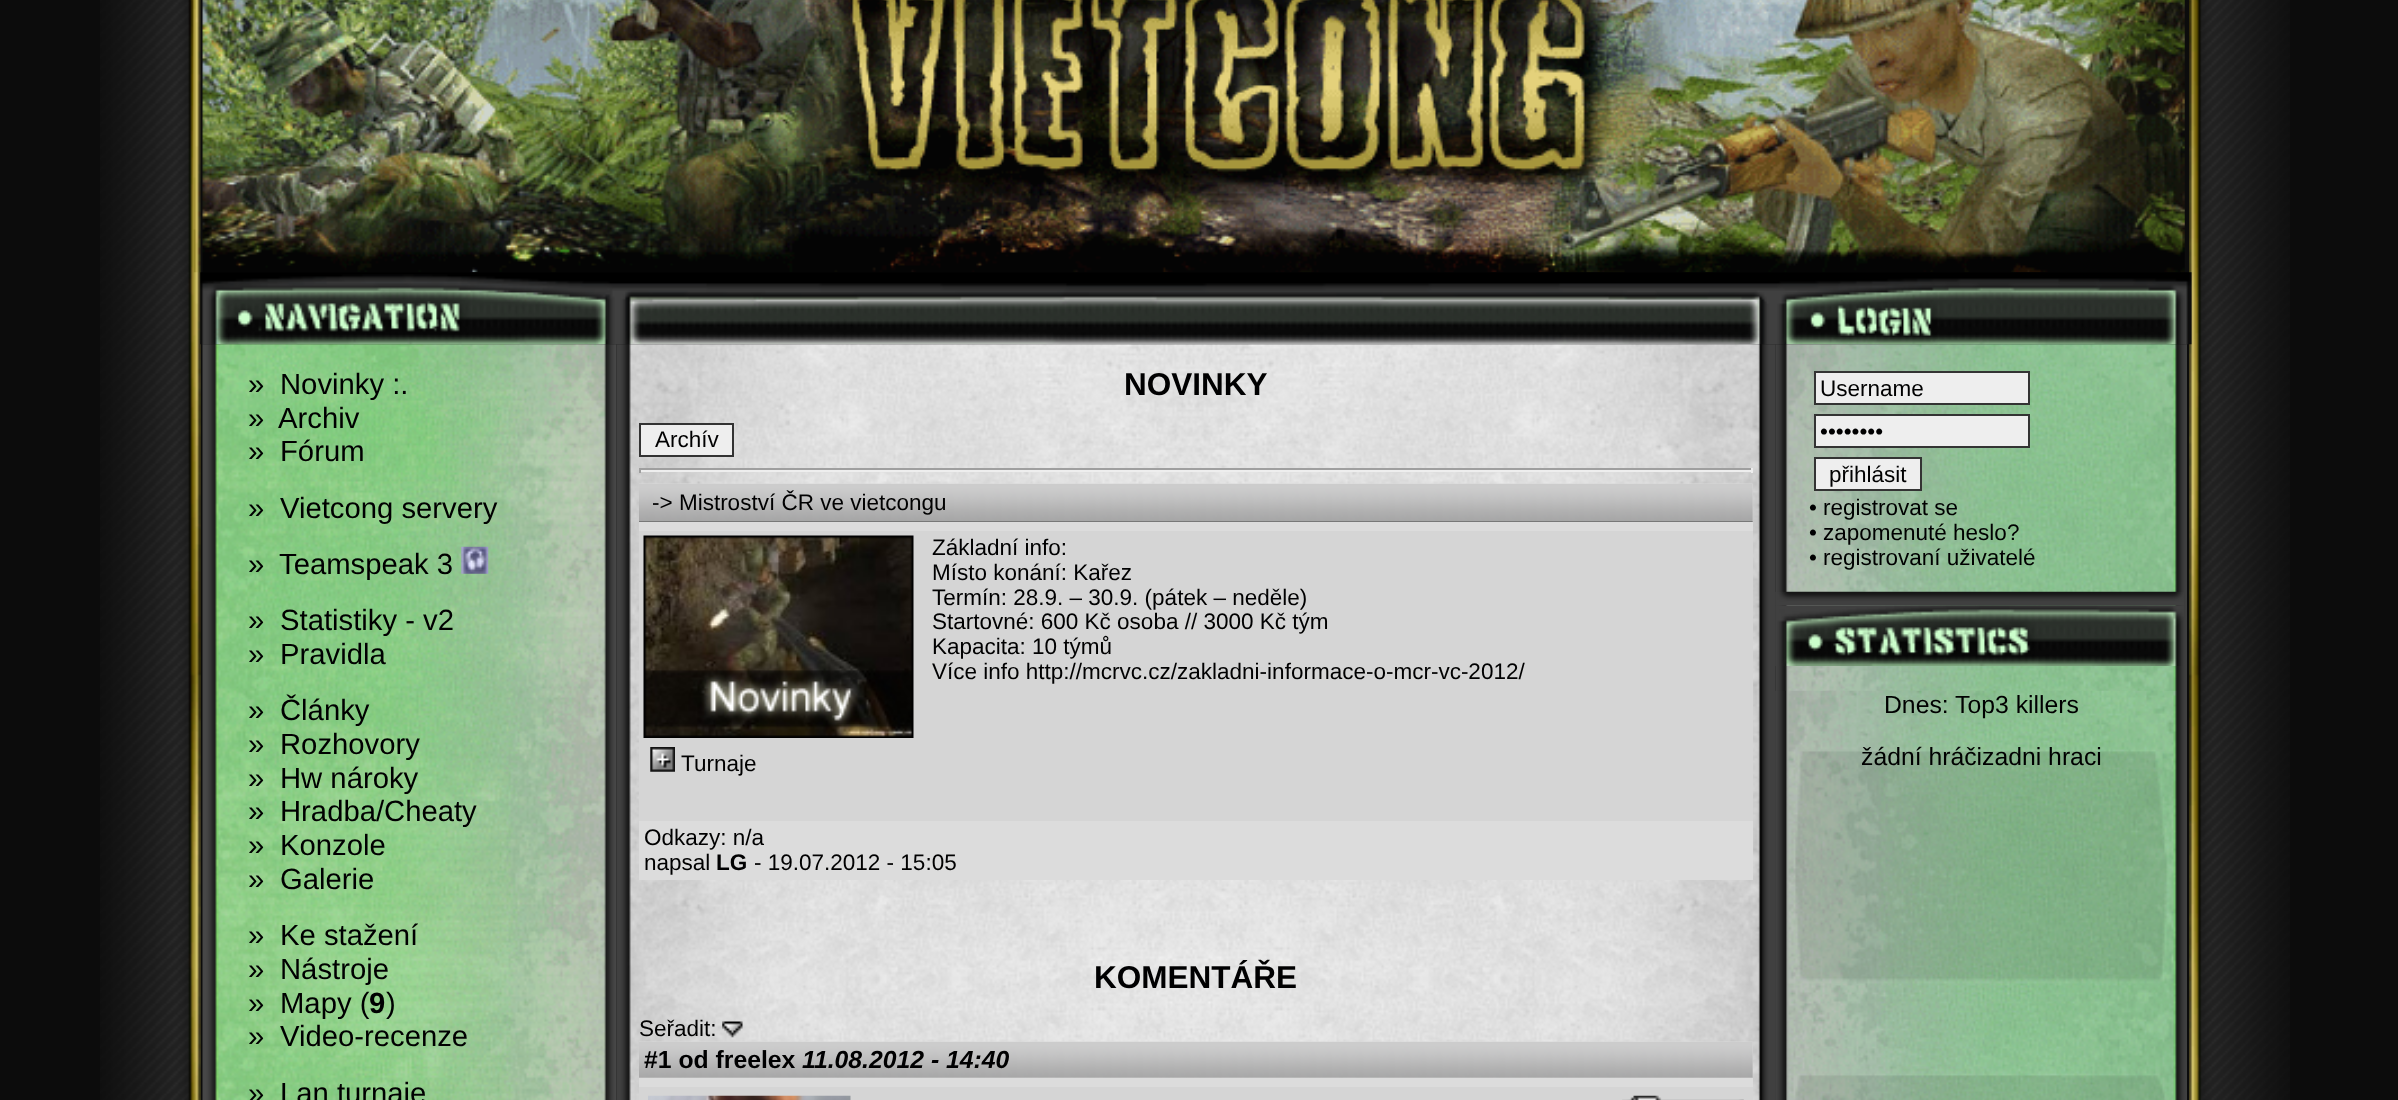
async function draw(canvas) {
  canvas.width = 2398
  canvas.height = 1100
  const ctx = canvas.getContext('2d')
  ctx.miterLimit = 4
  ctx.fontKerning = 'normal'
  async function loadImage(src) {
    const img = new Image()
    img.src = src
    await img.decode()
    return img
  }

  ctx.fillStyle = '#0c0c0c'
  ctx.fillRect(0, 0, 2398, 1100)
  ctx.drawImage(await loadImage('image0.png'), 100, 0, 101, 1100)
  ctx.drawImage(await loadImage('image1.png'), 193, 0, 1992, 273)
  ctx.drawImage(await loadImage('image17.png'), 2189, 0, 101, 1100)
  ctx.drawImage(await loadImage('image2.png'), 200, 272, 1992, 73)
  ctx.drawImage(await loadImage('image3.png'), 202, 344, 415, 756)
  ctx.font = '29.25px Liberation Sans'
  ctx.fillStyle = '#000001'
  ctx.fillText('»', 248, 394)
  ctx.fillText('Novinky :.', 280, 394)
  ctx.fillText('»', 248, 428)
  ctx.fillText('Archiv', 278, 428)
  ctx.fillText('»', 248, 461)
  ctx.fillText('Fórum', 280, 461)
  ctx.fillText('»', 248, 518)
  ctx.fillText('Vietcong servery', 280, 518)
  ctx.fillText('»', 248, 574)
  ctx.fillText('Teamspeak 3', 279, 574)
  ctx.drawImage(await loadImage('image4.png'), 461, 546, 28, 28)
  ctx.fillText('»', 248, 630)
  ctx.fillText('Statistiky - v2', 280, 630)
  ctx.fillText('»', 248, 664)
  ctx.fillText('Pravidla', 280, 664)
  ctx.fillText('»', 248, 720)
  ctx.fillText('Články', 280, 720)
  ctx.fillText('»', 248, 754)
  ctx.fillText('Rozhovory', 280, 754)
  ctx.fillText('»', 248, 788)
  ctx.fillText('Hw nároky', 280, 788)
  ctx.fillText('»', 248, 821)
  ctx.fillText('Hradba/Cheaty', 280, 821)
  ctx.fillText('»', 248, 855)
  ctx.fillText('Konzole', 280, 855)
  ctx.fillText('»', 248, 889)
  ctx.fillText('Galerie', 280, 889)
  ctx.fillText('»', 248, 945)
  ctx.fillText('Ke stažení', 280, 945)
  ctx.fillText('»', 248, 979)
  ctx.fillText('Nástroje', 280, 979)
  ctx.fillText('»', 248, 1013)
  ctx.fillText('Mapy (', 280, 1013)
  ctx.font = 'bold 29.25px Liberation Sans'
  ctx.fillText('9', 369, 1013)
  ctx.font = '29.25px Liberation Sans'
  ctx.fillText(')', 386, 1013)
  ctx.fillText('»', 248, 1046)
  ctx.fillText('Video-recenze', 280, 1046)
  ctx.fillText('»', 248, 1103)
  ctx.fillText('Lan turnaje', 280, 1103)
  ctx.drawImage(await loadImage('image5.png'), 616, 344, 1160, 756)
  ctx.font = 'bold 31.5px Liberation Sans'
  ctx.fillText('NOVINKY', 1124, 395)
  ctx.fillStyle = '#eee'
  ctx.beginPath()
  ctx.rect(640, 424, 93, 32)
  ctx.fill()
  ctx.strokeStyle = '#333'
  ctx.lineWidth = 2
  ctx.stroke()
  ctx.font = '22.5px Liberation Sans'
  ctx.fillStyle = '#000001'
  ctx.fillText('Archív', 655, 447)
  ctx.fillStyle = '#9f9f9f'
  ctx.fillRect(639, 468, 1114, 2)
  ctx.fillStyle = '#eee'
  ctx.fillRect(1751, 468, 2, 5)
  ctx.fillRect(639, 470, 1114, 2)
  ctx.fillStyle = '#9f9f9f'
  ctx.fillRect(639, 468, 2, 5)
  ctx.drawImage(await loadImage('image6.png'), 639, 483, 1114, 39)
  ctx.fillStyle = '#000001'
  ctx.fillText('-> Mistroství ČR ve vietcongu', 652, 510)
  ctx.fillStyle = '#dcdcdc'
  ctx.fillRect(639, 522, 1114, 9)
  ctx.fillStyle = '#d5d5d5'
  ctx.fillRect(639, 531, 1114, 290)
  ctx.drawImage(await loadImage('image7.png'), 643, 535, 271, 203)
  ctx.fillStyle = '#000001'
  ctx.fillText('Základní info:', 932, 555)
  ctx.fillText('Místo konání: Kařez', 932, 580)
  ctx.fillText('Termín: 28.9. – 30.9. (pátek – neděle)', 932, 605)
  ctx.fillText('Startovné: 600 Kč osoba // 3000 Kč tým', 932, 629)
  ctx.fillText('Kapacita: 10 týmů', 932, 654)
  ctx.fillText('Více info http://mcrvc.cz/zakladni-informace-o-mcr-vc-2012/', 932, 679)
  ctx.drawImage(await loadImage('image8.png'), 650, 747, 25, 25)
  ctx.fillText('Turnaje', 681, 771)
  ctx.fillStyle = '#dcdcdc'
  ctx.fillRect(639, 821, 1114, 59)
  ctx.fillStyle = '#000001'
  ctx.fillText('Odkazy: n/a', 644, 845)
  ctx.fillText('napsal', 644, 870)
  ctx.font = 'bold 22.5px Liberation Sans'
  ctx.fillText('LG', 716, 870)
  ctx.font = '22.5px Liberation Sans'
  ctx.fillText('- 19.07.2012 - 15:05', 754, 870)
  ctx.font = 'bold 31.5px Liberation Sans'
  ctx.fillText('KOMENTÁŘE', 1094, 988)
  ctx.font = '22.5px Liberation Sans'
  ctx.fillText('Seřadit:', 639, 1036)
  ctx.drawImage(await loadImage('image9.png'), 722, 1021, 21, 17)
  ctx.drawImage(await loadImage('image10.png'), 639, 1041, 1114, 37)
  ctx.font = 'bold 24.75px Liberation Sans'
  ctx.fillText('#1 od freelex', 644, 1068)
  ctx.font = 'italic bold 24.75px Liberation Sans'
  ctx.fillText('11.08.2012 - 14:40', 802, 1068)
  ctx.fillStyle = '#dcdcdc'
  ctx.fillRect(639, 1078, 1114, 9)
  ctx.fillStyle = '#d5d5d5'
  ctx.fillRect(639, 1087, 1114, 13)
  ctx.drawImage(await loadImage('image11.png'), 648, 1095, 203, 5)
  ctx.drawImage(await loadImage('image12.png'), 1622, 1095, 122, 5)
  ctx.drawImage(await loadImage('image13.png'), 1775, 344, 412, 756)
  ctx.fillStyle = '#eee'
  ctx.beginPath()
  ctx.rect(1815, 372, 214, 32)
  ctx.fill()
  ctx.stroke()
  ctx.font = '22.5px Liberation Sans'
  ctx.fillStyle = '#000001'
  ctx.fillText('Username', 1820, 396)
  ctx.fillStyle = '#eee'
  ctx.beginPath()
  ctx.rect(1815, 415, 214, 32)
  ctx.fill()
  ctx.stroke()
  ctx.fillStyle = '#000001'
  ctx.fillText('••••••••', 1820, 439)
  ctx.fillStyle = '#eee'
  ctx.beginPath()
  ctx.rect(1815, 458, 106, 32)
  ctx.fill()
  ctx.stroke()
  ctx.fillStyle = '#000001'
  ctx.fillText('přihlásit', 1829, 482)
  ctx.fillText('•', 1809, 515)
  ctx.fillText('registrovat se', 1823, 515)
  ctx.fillText('•', 1809, 540)
  ctx.fillText('zapomenuté heslo?', 1823, 540)
  ctx.fillText('•', 1809, 565)
  ctx.fillText('registrovaní uživatelé', 1823, 565)
  ctx.drawImage(await loadImage('image14.png'), 1775, 591, 409, 15)
  ctx.drawImage(await loadImage('image15.png'), 1775, 605, 409, 61)
  ctx.drawImage(await loadImage('image16.png'), 1775, 690, 402, 410)
  ctx.font = '24.75px Liberation Sans'
  ctx.fillText('Dnes: Top3 killers', 1884, 713)
  ctx.fillText('žádní hráčizadni hraci', 1861, 765)
}

draw(document.querySelector('canvas'))
